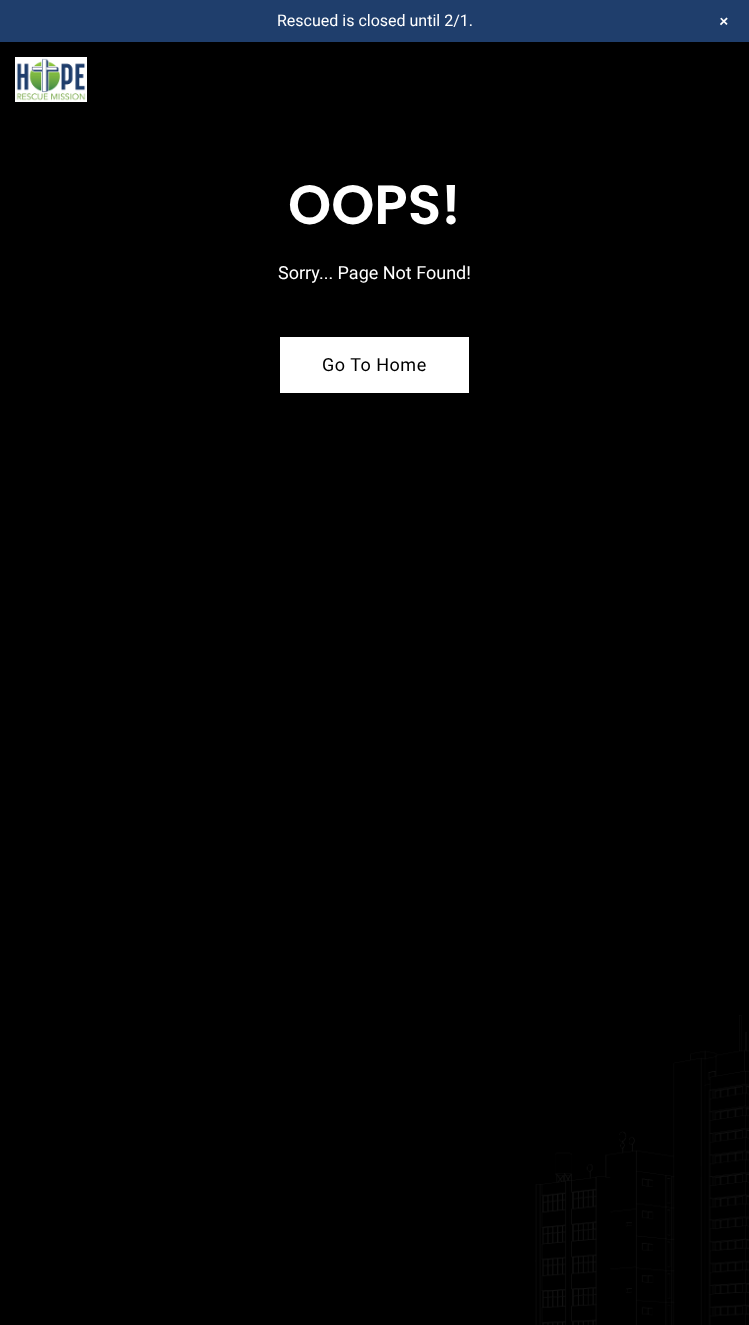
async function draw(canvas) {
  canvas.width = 749
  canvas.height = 1325
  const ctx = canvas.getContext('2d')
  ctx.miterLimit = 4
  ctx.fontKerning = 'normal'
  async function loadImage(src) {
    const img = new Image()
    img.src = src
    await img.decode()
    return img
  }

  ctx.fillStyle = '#000'
  ctx.fillRect(0, 0, 749, 1325)
  ctx.fillStyle = '#1f3e6c'
  ctx.fillRect(0, 0, 749, 42)
  ctx.font = '16px Roboto'
  ctx.fillStyle = '#fff'
  ctx.fillText('Rescued is closed until 2/1.', 277, 26)
  ctx.font = '18px Roboto'
  ctx.save()
  ctx.translate(716, 22)
  ctx.rotate(45 * Math.PI / 180)
  ctx.fillText('+', 0, 0)
  ctx.restore()
  ctx.drawImage(await loadImage('image0.png'), 15, 57, 72, 45)
  ctx.font = '600 55px Poppins'
  ctx.fillText('OOPS!', 288, 224)
  ctx.font = '18px Roboto'
  ctx.fillText('Sorry... Page Not Found!', 278, 279)
  ctx.fillRect(280, 337, 189, 56)
  ctx.letterSpacing = '0.5px'
  ctx.fillStyle = '#000'
  ctx.fillText('Go To Home', 322, 371)
  ctx.drawImage(await loadImage('image1.png'), 535, 1015, 214, 310)
}

draw(document.querySelector('canvas'))
